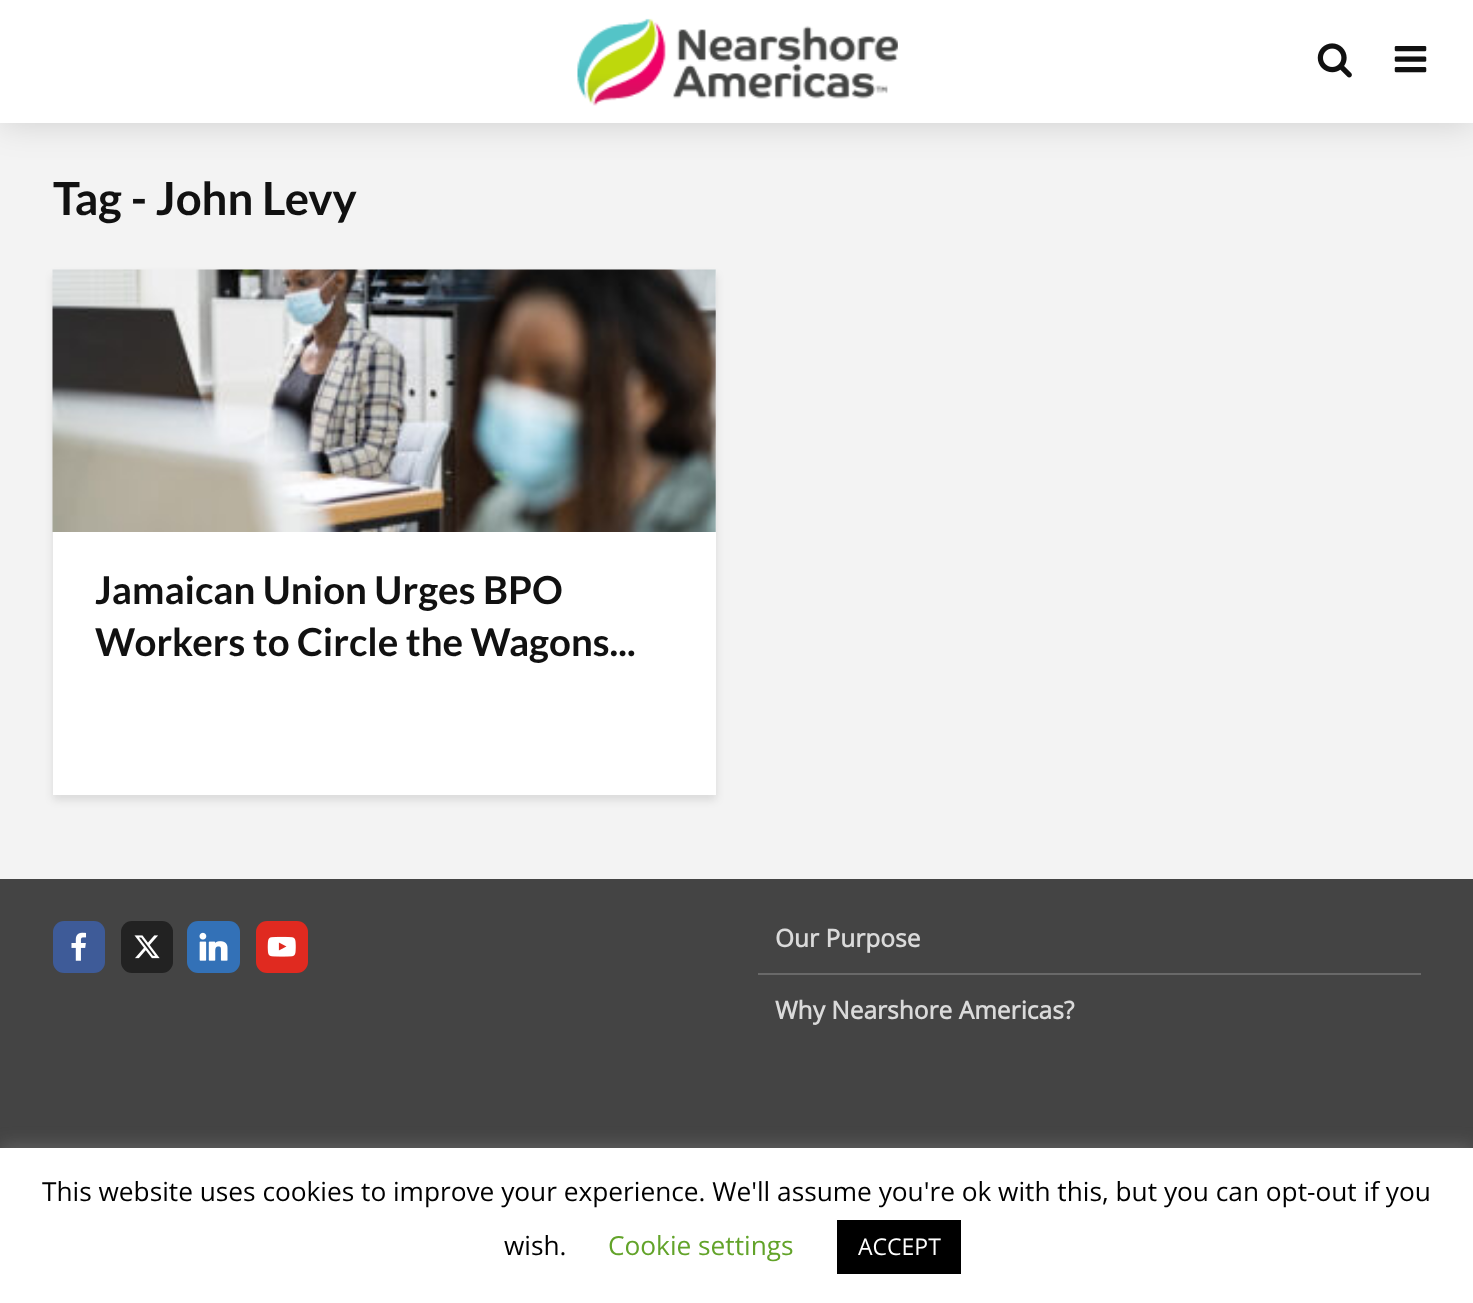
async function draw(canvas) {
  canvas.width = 1473
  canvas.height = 1303
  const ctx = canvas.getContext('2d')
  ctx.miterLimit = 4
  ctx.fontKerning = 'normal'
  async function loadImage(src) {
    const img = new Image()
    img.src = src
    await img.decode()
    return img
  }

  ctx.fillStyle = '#f3f3f3'
  ctx.fillRect(0, 0, 1473, 1303)
  ctx.fillStyle = '#00000026'
  ctx.filter = 'blur(17.5px)'
  ctx.beginPath()
  ctx.rect(0, 0, 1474, 123)
  ctx.fill()
  ctx.filter = 'none'
  ctx.fillStyle = '#fff'
  ctx.fillRect(0, 0, 1473, 123)
  ctx.drawImage(await loadImage('image0.png'), 577, 18, 321, 88)
  ctx.drawImage(await loadImage('image1.png'), 1317, 43, 35, 35)
  ctx.drawImage(await loadImage('image2.png'), 1394, 46, 33, 27)
  ctx.font = 'bold 45.5px Lato'
  ctx.fillStyle = '#111'
  ctx.fillText('Tag - John Levy', 53, 215)
  ctx.fillStyle = '#0001011a'
  ctx.filter = 'blur(4.5px)'
  ctx.beginPath()
  ctx.rect(53, 275, 663, 525)
  ctx.fill()
  ctx.filter = 'none'
  ctx.fillStyle = '#fff'
  ctx.fillRect(53, 270, 663, 525)
  ctx.drawImage(await loadImage('image3.png'), 52, 269, 664, 263)
  ctx.font = 'bold 38.5px Lato'
  ctx.fillStyle = '#111'
  ctx.fillText('Jamaican Union Urges BPO', 95, 604)
  ctx.fillText('Workers to Circle the Wagons...', 95, 656)
  ctx.fillStyle = '#444'
  ctx.fillRect(0, 879, 1473, 269)
  ctx.fillStyle = '#3e5b98'
  ctx.beginPath()
  ctx.roundRect(53, 921, 52, 52, 11)
  ctx.fill()
  ctx.drawImage(await loadImage('image4.png'), 71, 932, 16, 29)
  ctx.fillStyle = '#222'
  ctx.beginPath()
  ctx.roundRect(121, 921, 52, 52, 11)
  ctx.fill()
  ctx.drawImage(await loadImage('image5.png'), 134, 935, 26, 24)
  ctx.fillStyle = '#3371b7'
  ctx.beginPath()
  ctx.roundRect(187, 921, 53, 52, 11)
  ctx.fill()
  ctx.drawImage(await loadImage('image6.png'), 199, 932, 29, 29)
  ctx.fillStyle = '#e02a20'
  ctx.beginPath()
  ctx.roundRect(256, 921, 52, 52, 11)
  ctx.fill()
  ctx.drawImage(await loadImage('image7.png'), 267, 936, 29, 21)
  ctx.fillStyle = '#696969'
  ctx.fillRect(758, 973, 663, 2)
  ctx.font = 'bold 24.5px Open Sans'
  ctx.fillStyle = '#dadada'
  ctx.fillText('Our Purpose', 775, 947)
  ctx.fillText('Why Nearshore Americas?', 775, 1019)
  ctx.fillStyle = '#acabab4d'
  ctx.filter = 'blur(9px)'
  ctx.beginPath()
  ctx.rect(0, 1146, 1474, 156)
  ctx.fill()
  ctx.filter = 'none'
  ctx.fillStyle = '#fff'
  ctx.fillRect(0, 1148, 1473, 155)
  ctx.font = '26.25px Open Sans'
  ctx.fillStyle = '#000'
  ctx.fillText('This website uses cookies to improve your experience. We\'ll assume you\'re ok with this, but you can opt-out if you', 42, 1201)
  ctx.fillText('wish.', 504, 1255)
  ctx.fillStyle = '#62a329'
  ctx.fillText('Cookie settings', 608, 1255)
  ctx.fillStyle = '#000'
  ctx.fillRect(837, 1220, 124, 54)
  ctx.font = '23px Open Sans'
  ctx.fillStyle = '#fff'
  ctx.fillText('ACCEPT', 858, 1255)
}

draw(document.querySelector('canvas'))
